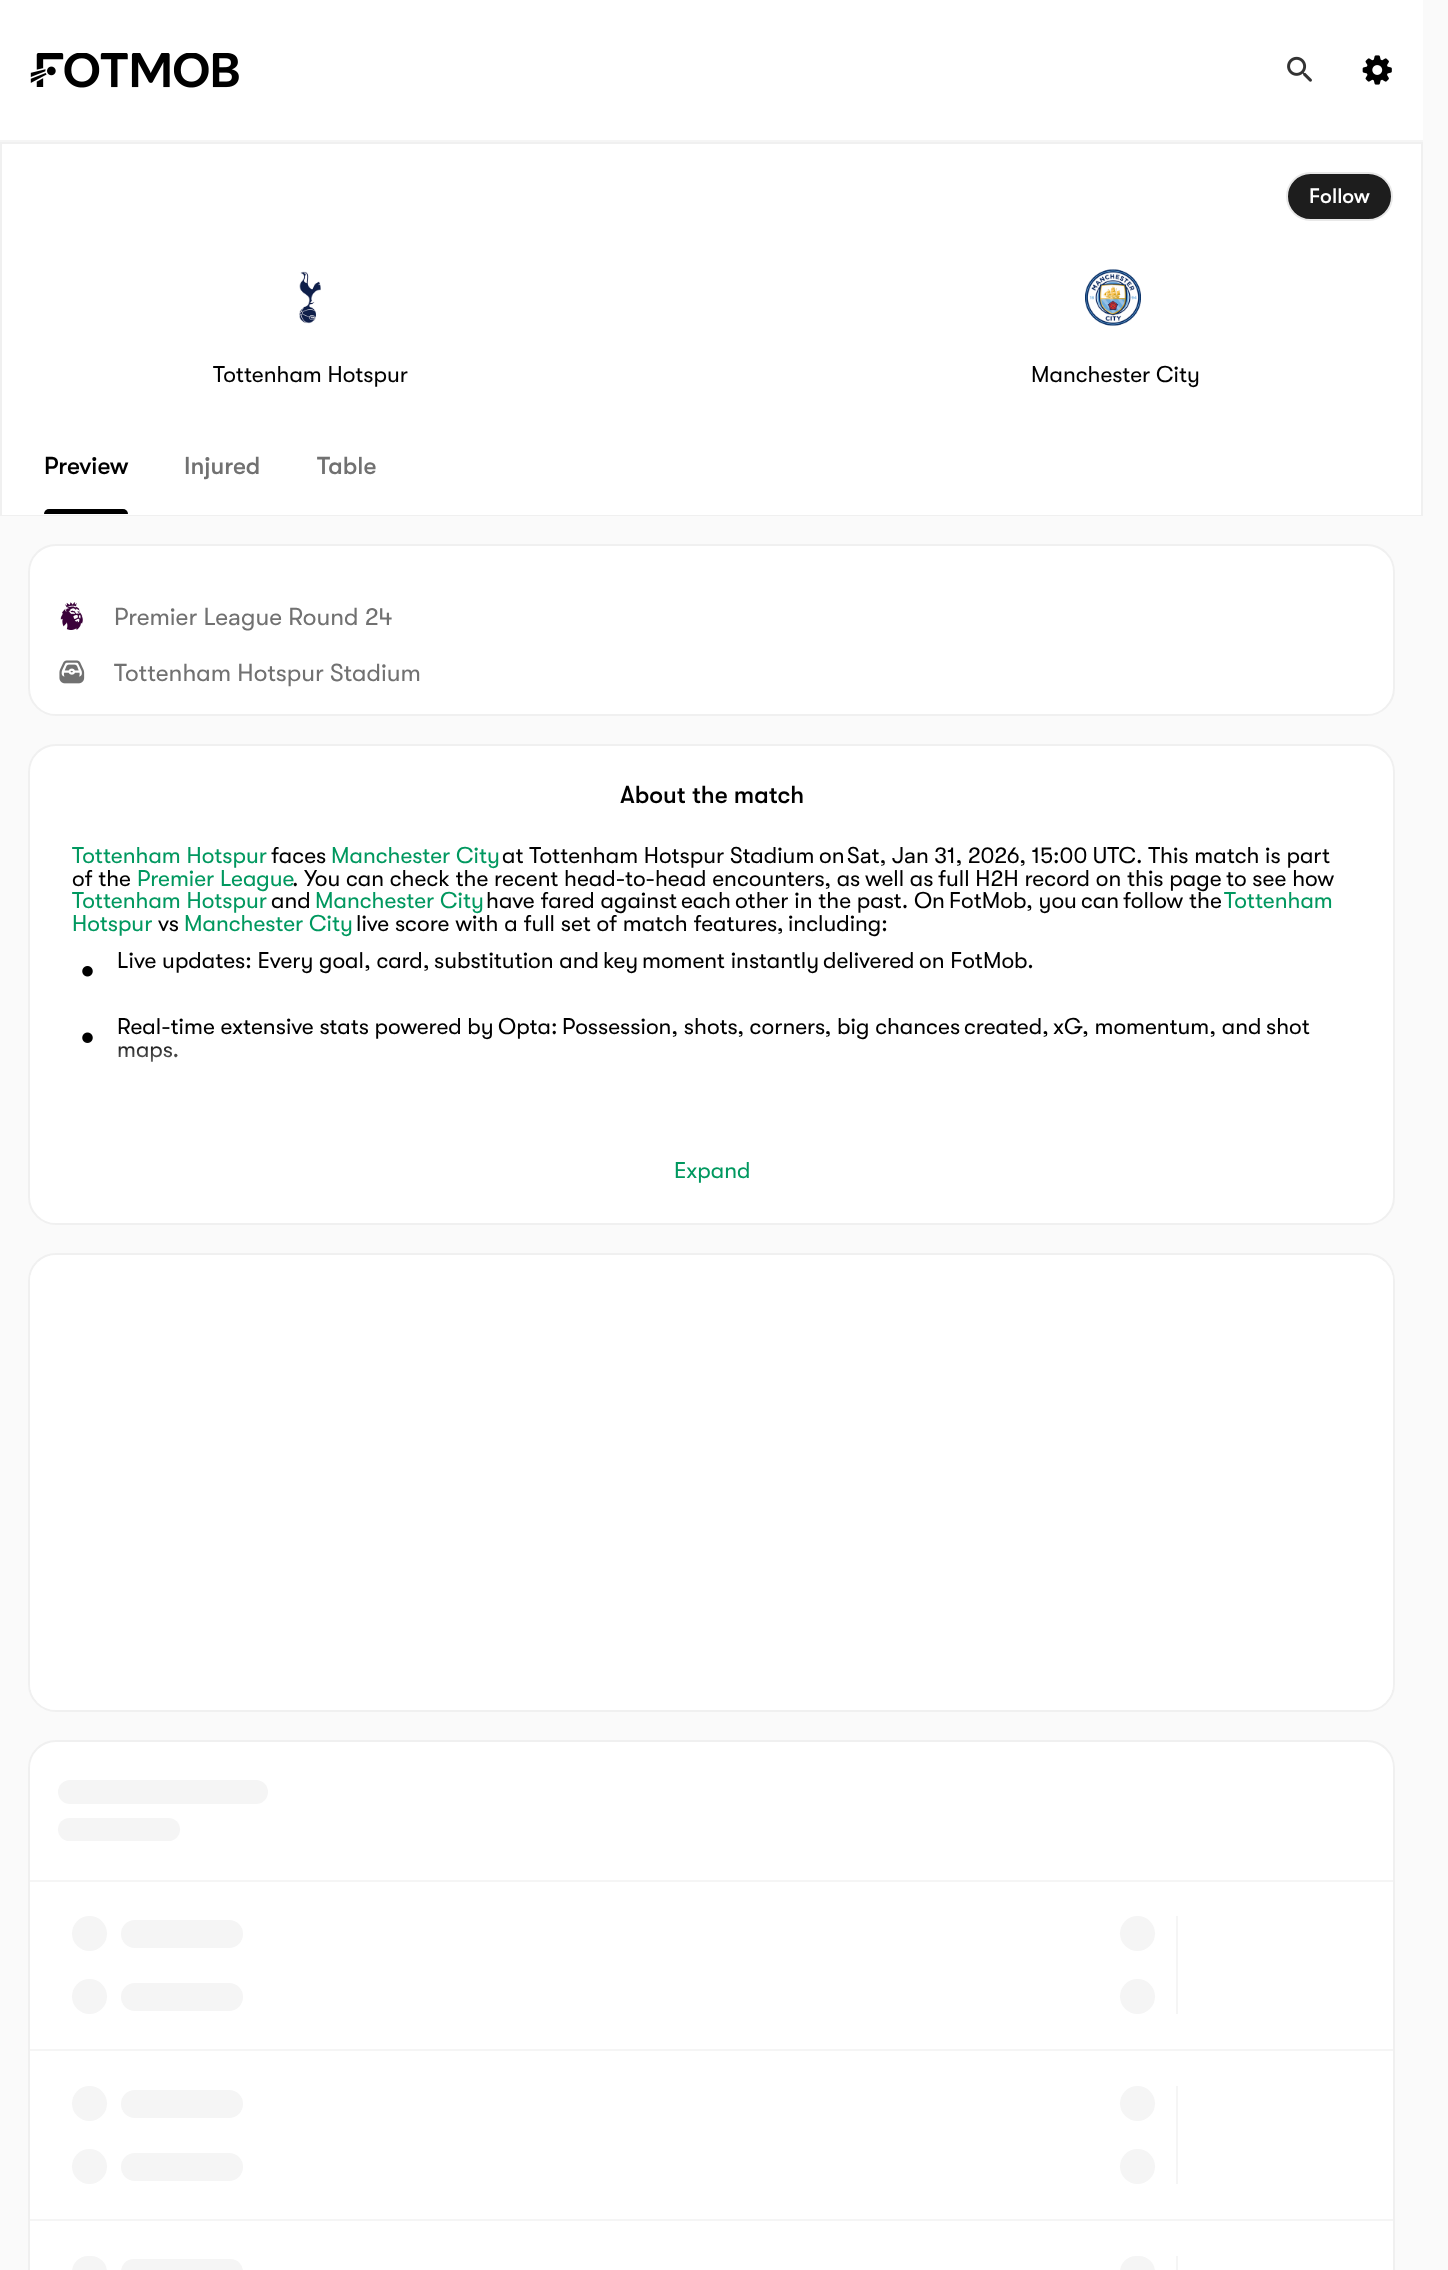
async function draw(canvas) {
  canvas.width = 1448
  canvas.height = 2270
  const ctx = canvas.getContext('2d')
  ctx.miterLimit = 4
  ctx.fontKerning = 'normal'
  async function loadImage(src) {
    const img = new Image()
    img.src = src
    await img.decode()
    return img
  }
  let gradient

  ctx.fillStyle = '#fafafa'
  ctx.fillRect(0, 0, 1448, 2270)
  ctx.fillStyle = '#f5f5f5'
  ctx.fillRect(0, 140, 1423, 2)
  ctx.fillStyle = '#fff'
  ctx.fillRect(0, 0, 1423, 140)
  ctx.drawImage(await loadImage('image0.png'), 30, 53, 209, 35)
  ctx.drawImage(await loadImage('image1.png'), 1287, 56, 25, 26)
  ctx.drawImage(await loadImage('image2.png'), 1362, 55, 30, 30)
  ctx.fillRect(2, 144, 1419, 273)
  ctx.strokeStyle = '#f0f0f0'
  ctx.lineWidth = 2
  ctx.strokeRect(1, 143, 1421, 372)
  ctx.fillStyle = '#1d1d1d'
  ctx.beginPath()
  ctx.roundRect(1287, 173, 105, 47, 23.5)
  ctx.fill()
  ctx.strokeStyle = '#e8e8e8'
  ctx.stroke()
  ctx.font = '500 21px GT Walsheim'
  ctx.fillStyle = '#fff'
  ctx.fillText('Follow', 1309, 203)
  ctx.drawImage(await loadImage('image3.png'), 299, 271, 22, 53)
  ctx.font = '22.75px GT Walsheim'
  ctx.fillStyle = '#000'
  ctx.fillText('Tottenham Hotspur', 213, 382)
  ctx.drawImage(await loadImage('image4.png'), 1085, 269, 56, 57)
  ctx.fillText('Manchester City', 1031, 382)
  ctx.fillStyle = '#fff'
  ctx.fillRect(2, 417, 1419, 98)
  ctx.font = '500 24.5px GT Walsheim'
  ctx.fillStyle = '#000'
  ctx.fillText('Preview', 44, 474)
  ctx.fillStyle = '#717171'
  ctx.fillText('Injured', 184, 474)
  ctx.fillText('Table', 317, 474)
  ctx.fillStyle = '#000'
  ctx.beginPath()
  ctx.roundRect(44, 509, 84, 5, [5, 5, 0, 0])
  ctx.fill()
  ctx.fillStyle = '#fff'
  ctx.beginPath()
  ctx.roundRect(29, 545, 1365, 170, 27)
  ctx.fill()
  ctx.strokeStyle = '#f0f0f0'
  ctx.stroke()
  ctx.drawImage(await loadImage('image5.png'), 60, 602, 23, 28)
  ctx.font = '24.5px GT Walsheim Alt'
  ctx.fillStyle = '#717171'
  ctx.fillText('Premier League Round 24', 114, 625)
  ctx.drawImage(await loadImage('image6.png'), 59, 660, 26, 24)
  ctx.font = '24.5px GT Walsheim'
  ctx.fillText('Tottenham Hotspur Stadium', 114, 681)
  ctx.fillStyle = '#fff'
  ctx.beginPath()
  ctx.roundRect(29, 745, 1365, 479, 27)
  ctx.fill()
  ctx.stroke()
  ctx.font = '500 24.5px GT Walsheim'
  ctx.fillStyle = '#000'
  ctx.fillText('About the match', 620, 803)
  ctx.font = '22.75px GT Walsheim'
  ctx.fillStyle = '#00985f'
  ctx.fillText('Tottenham Hotspur', 72, 863)
  ctx.fillStyle = '#000'
  ctx.fillText('faces', 271, 863)
  ctx.fillStyle = '#00985f'
  ctx.fillText('Manchester City', 331, 863)
  ctx.fillStyle = '#000'
  ctx.fillText('at Tottenham Hotspur Stadium', 502, 863)
  ctx.fillText('on', 819, 863)
  ctx.wordSpacing = '-0.25px'
  ctx.font = '22.75px GT Walsheim Alt'
  ctx.fillText('Sat, Jan 31, 2026, 15:00 UTC', 847, 863)
  ctx.wordSpacing = '0px'
  ctx.font = '22.75px GT Walsheim'
  ctx.fillText('. This match is part', 1136, 863)
  ctx.fillText('of the', 72, 886)
  ctx.fillStyle = '#00985f'
  ctx.fillText('Premier League', 137, 886)
  ctx.fillStyle = '#000'
  ctx.fillText('. You can check the recent head-to-head encounters, as', 292, 886)
  ctx.fillText('well as', 865, 886)
  ctx.fillText('full H2H record on this page', 938, 886)
  ctx.fillText('to see how', 1226, 886)
  ctx.fillStyle = '#00985f'
  ctx.fillText('Tottenham Hotspur', 72, 908)
  ctx.fillStyle = '#000'
  ctx.fillText('and', 271, 908)
  ctx.fillStyle = '#00985f'
  ctx.fillText('Manchester City', 315, 908)
  ctx.fillStyle = '#000'
  ctx.fillText('have fared against', 486, 908)
  ctx.fillText('each', 681, 908)
  ctx.fillText('other in the past. On', 735, 908)
  ctx.fillText('FotMob, you', 949, 908)
  ctx.fillText('can', 1081, 908)
  ctx.fillText('follow the', 1123, 908)
  ctx.fillStyle = '#00985f'
  ctx.fillText('Tottenham', 1224, 908)
  ctx.fillText('Hotspur', 72, 931)
  ctx.fillStyle = '#000'
  ctx.fillText('vs', 158, 931)
  ctx.fillStyle = '#00985f'
  ctx.fillText('Manchester City', 184, 931)
  ctx.fillStyle = '#000'
  ctx.fillText('live score with a full set of match features,', 356, 931)
  ctx.fillText('including:', 788, 931)
  ctx.drawImage(await loadImage('image7.png'), 82, 966, 11, 11)
  ctx.fillText('Live updates: Every goal, card,', 117, 968)
  ctx.fillText('substitution and', 434, 968)
  ctx.fillText('key', 603, 968)
  ctx.fillText('moment instantly', 642, 968)
  ctx.fillText('delivered', 823, 968)
  ctx.fillText('on FotMob.', 919, 968)
  ctx.drawImage(await loadImage('image8.png'), 82, 1032, 11, 11)
  ctx.fillText('Real-time extensive stats powered by', 117, 1034)
  ctx.fillText('Opta:', 498, 1034)
  ctx.fillText('Possession, shots, corners, big chances', 562, 1034)
  ctx.fillText('created,', 964, 1034)
  ctx.fillText('xG, momentum, and', 1053, 1034)
  ctx.fillText('shot', 1266, 1034)
  ctx.fillText('maps.', 117, 1057)
  gradient = ctx.createLinearGradient(711, 843, 711, 1124)
  gradient.addColorStop(0.7, '#ffffff00')
  gradient.addColorStop(0.9, '#fff')
  ctx.fillStyle = gradient
  ctx.fillRect(84, 1041, 93, 21)
  ctx.fillStyle = '#00985f'
  ctx.fillText('Expand', 674, 1178)
  ctx.beginPath()
  ctx.roundRect(29, 1254, 1365, 457, 27)
  ctx.stroke()
  ctx.fillStyle = '#fff'
  ctx.beginPath()
  ctx.roundRect(30, 1255, 1363, 455, 26)
  ctx.fill()
  ctx.beginPath()
  ctx.roundRect(29, 1741, 1365, 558, 27)
  ctx.fill()
  ctx.stroke()
  ctx.fillStyle = '#f5f5f5'
  ctx.fillRect(30, 1880, 1363, 2)
  ctx.beginPath()
  ctx.roundRect(58, 1780, 210, 24, 12)
  ctx.fill()
  ctx.beginPath()
  ctx.roundRect(58, 1818, 122, 23, 11.5)
  ctx.fill()
  ctx.fillRect(30, 2049, 1363, 2)
  ctx.beginPath()
  ctx.arc(89.5, 1933.5, 17.5, 0, 2 * Math.PI)
  ctx.fill()
  ctx.beginPath()
  ctx.roundRect(121, 1920, 122, 28, 14)
  ctx.fill()
  ctx.beginPath()
  ctx.arc(1137.5, 1933.5, 17.5, 0, 2 * Math.PI)
  ctx.fill()
  ctx.beginPath()
  ctx.arc(89.5, 1996.5, 17.5, 0, 2 * Math.PI)
  ctx.fill()
  ctx.beginPath()
  ctx.roundRect(121, 1983, 122, 28, 14)
  ctx.fill()
  ctx.beginPath()
  ctx.arc(1137.5, 1996.5, 17.5, 0, 2 * Math.PI)
  ctx.fill()
  ctx.fillRect(1176, 1916, 2, 98)
  ctx.fillRect(30, 2219, 1363, 2)
  ctx.beginPath()
  ctx.arc(89.5, 2103.5, 17.5, 0, 2 * Math.PI)
  ctx.fill()
  ctx.beginPath()
  ctx.roundRect(121, 2090, 122, 28, 14)
  ctx.fill()
  ctx.beginPath()
  ctx.arc(1137.5, 2103.5, 17.5, 0, 2 * Math.PI)
  ctx.fill()
  ctx.beginPath()
  ctx.arc(89.5, 2166.5, 17.5, 0, 2 * Math.PI)
  ctx.fill()
  ctx.beginPath()
  ctx.roundRect(121, 2153, 122, 28, 14)
  ctx.fill()
  ctx.beginPath()
  ctx.arc(1137.5, 2166.5, 17.5, 0, 2 * Math.PI)
  ctx.fill()
  ctx.fillRect(1176, 2086, 2, 98)
  ctx.beginPath()
  ctx.roundRect(72, 2256, 35, 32, 17.5)
  ctx.fill()
  ctx.beginPath()
  ctx.roundRect(121, 2259, 122, 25, 14)
  ctx.fill()
  ctx.beginPath()
  ctx.roundRect(1120, 2256, 35, 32, 17.5)
  ctx.fill()
  ctx.fillRect(1176, 2256, 2, 14)
}

draw(document.querySelector('canvas'))
